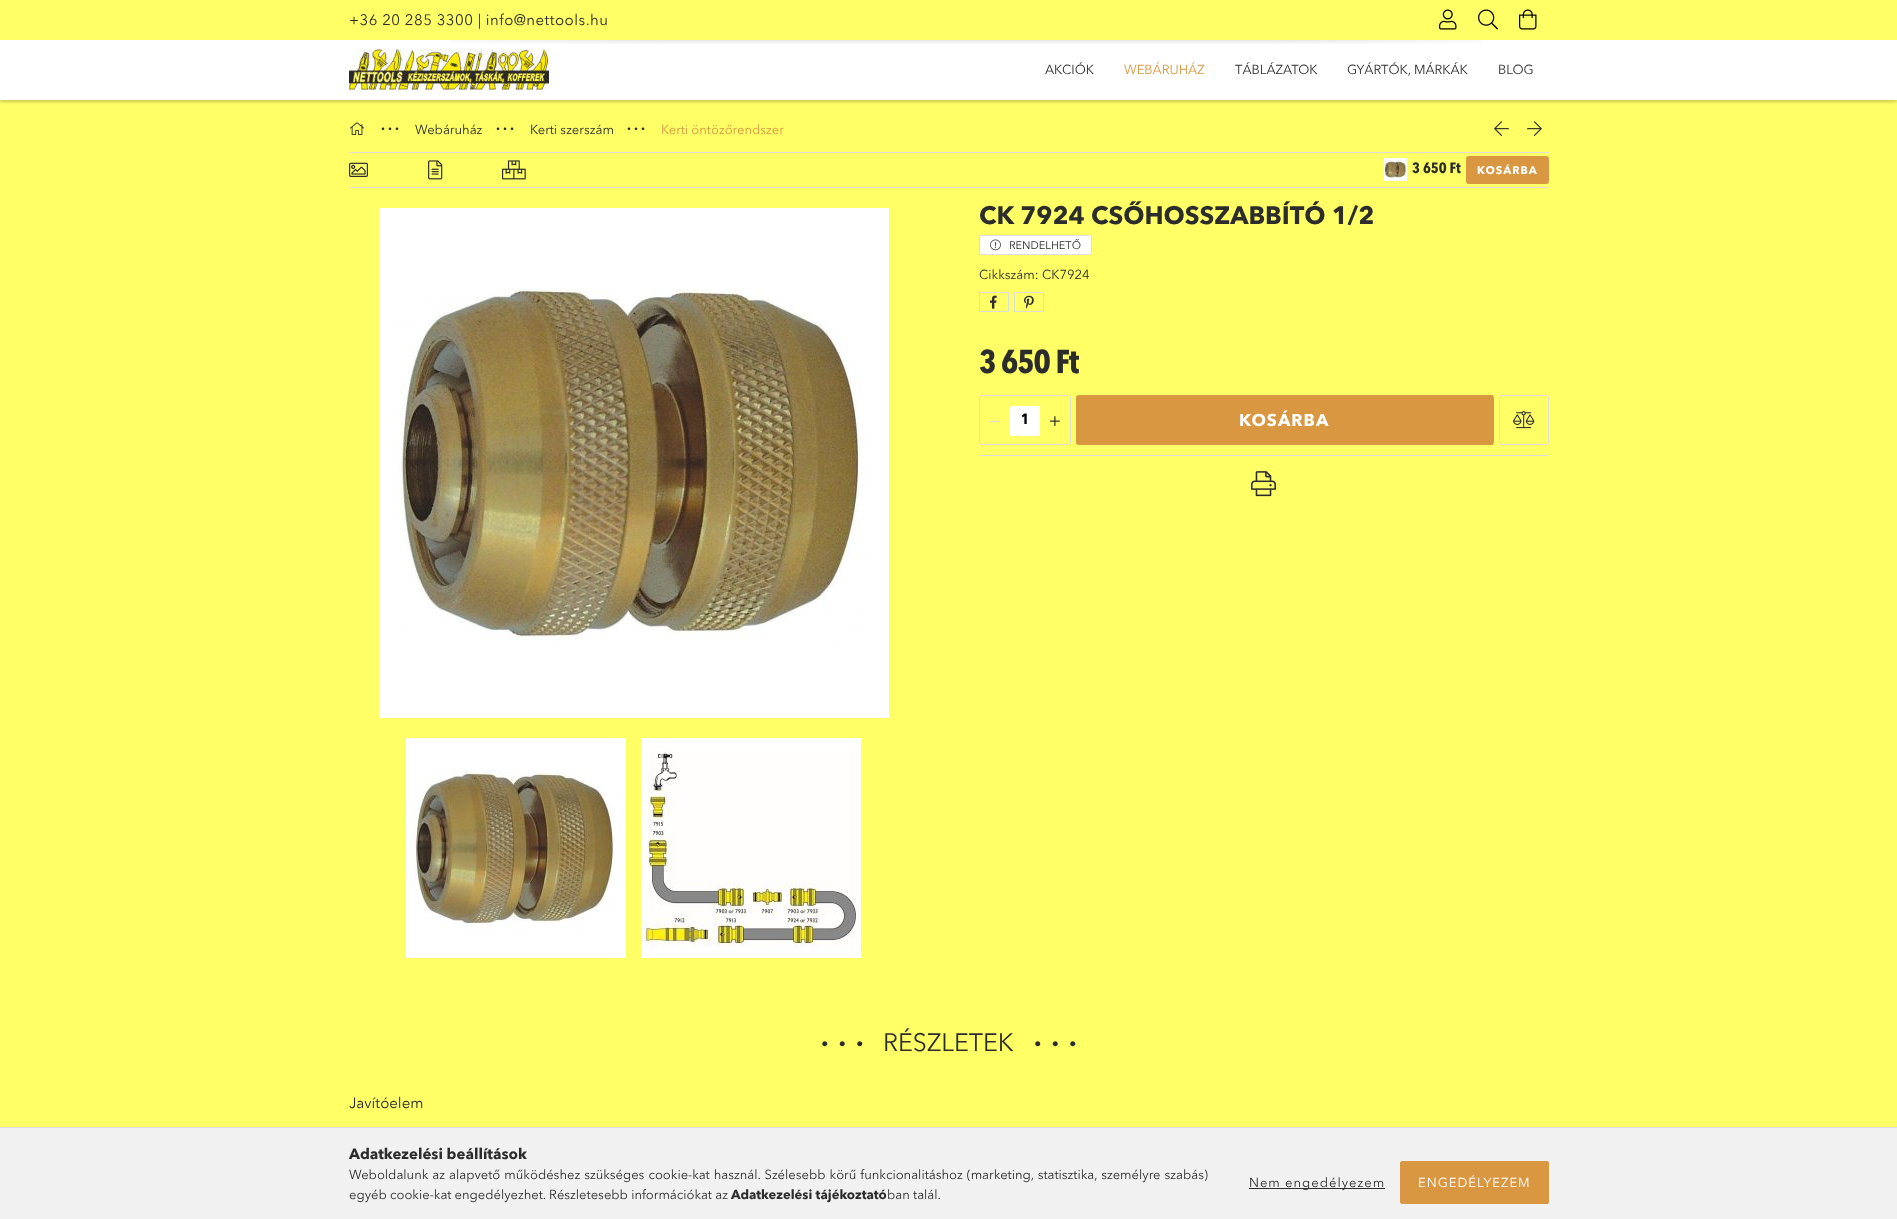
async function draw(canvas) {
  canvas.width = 1897
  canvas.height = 1219
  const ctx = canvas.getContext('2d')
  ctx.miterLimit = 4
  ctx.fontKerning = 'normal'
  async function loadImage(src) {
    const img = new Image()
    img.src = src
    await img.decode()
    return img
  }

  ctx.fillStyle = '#ff6'
  ctx.fillRect(0, 0, 1897, 1219)
  ctx.fillStyle = '#00000033'
  ctx.filter = 'blur(1.5px)'
  ctx.beginPath()
  ctx.rect(0, 2, 1897, 100)
  ctx.fill()
  ctx.filter = 'none'
  ctx.fillStyle = '#fff'
  ctx.fillRect(0, 40, 1897, 60)
  ctx.fillStyle = '#ff6'
  ctx.fillRect(0, 0, 1897, 40)
  ctx.letterSpacing = '0.5px'
  ctx.font = '15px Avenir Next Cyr'
  ctx.fillStyle = '#2c2c2c'
  ctx.fillText('+36 20 285 3300 | info@nettools.hu', 349, 25)
  ctx.drawImage(await loadImage('image0.png'), 1439, 9, 18, 21)
  ctx.drawImage(await loadImage('image1.png'), 1478, 9, 20, 21)
  ctx.drawImage(await loadImage('image2.png'), 1519, 9, 18, 21)
  ctx.drawImage(await loadImage('image3.png'), 450, 40, 1032, 4)
  ctx.drawImage(await loadImage('image4.png'), 349, 49, 200, 41)
  ctx.letterSpacing = '0px'
  ctx.font = '13px Avenir Next Cyr'
  ctx.fillText('AKCIÓK', 1045, 74)
  ctx.fillStyle = '#d99741'
  ctx.fillText('WEBÁRUHÁZ', 1124, 74)
  ctx.fillStyle = '#2c2c2c'
  ctx.fillText('TÁBLÁZATOK', 1235, 74)
  ctx.fillText('GYÁRTÓK, MÁRKÁK', 1347, 74)
  ctx.fillText('BLOG', 1498, 74)
  ctx.drawImage(await loadImage('image5.png'), 350, 122, 15, 13)
  ctx.letterSpacing = '3px'
  ctx.font = 'bold 16px Liberation Serif'
  ctx.fillText('∙∙∙', 381, 134)
  ctx.letterSpacing = '0px'
  ctx.font = '13px Avenir Next Cyr'
  ctx.fillText('Webáruház', 415, 134)
  ctx.letterSpacing = '3px'
  ctx.font = 'bold 16px Liberation Serif'
  ctx.fillText('∙∙∙', 496, 134)
  ctx.letterSpacing = '0px'
  ctx.font = '13px Avenir Next Cyr'
  ctx.fillText('Kerti szerszám', 530, 134)
  ctx.letterSpacing = '3px'
  ctx.font = 'bold 16px Liberation Serif'
  ctx.fillText('∙∙∙', 627, 134)
  ctx.letterSpacing = '0px'
  ctx.font = '13px Avenir Next Cyr'
  ctx.fillStyle = '#d99741'
  ctx.fillText('Kerti öntözőrendszer', 661, 134)
  ctx.drawImage(await loadImage('image6.png'), 1494, 121, 15, 15)
  ctx.drawImage(await loadImage('image7.png'), 1527, 121, 15, 15)
  ctx.fillStyle = '#ddd'
  ctx.fillRect(349, 152, 1200, 1)
  ctx.fillRect(349, 187, 1200, 1)
  ctx.drawImage(await loadImage('image8.png'), 349, 162, 19, 15)
  ctx.drawImage(await loadImage('image9.png'), 428, 160, 15, 20)
  ctx.drawImage(await loadImage('image10.png'), 502, 160, 24, 20)
  ctx.drawImage(await loadImage('image11.png'), 1384, 158, 23, 23)
  ctx.font = 'bold 15px Avenir Next'
  ctx.fillStyle = '#2c2c2c'
  ctx.fillText('3 650 Ft', 1412, 173)
  ctx.fillStyle = '#d99741'
  ctx.beginPath()
  ctx.roundRect(1466.5, 156.5, 82, 27, 2)
  ctx.fill()
  ctx.strokeStyle = '#d99741'
  ctx.stroke()
  ctx.letterSpacing = '1px'
  ctx.font = 'bold 11px Avenir Next Cyr'
  ctx.fillStyle = '#fff'
  ctx.fillText('KOSÁRBA', 1477, 174)
  ctx.drawImage(await loadImage('image12.png'), 379, 208, 510, 510)
  ctx.drawImage(await loadImage('image13.png'), 406, 738, 220, 220)
  ctx.drawImage(await loadImage('image14.png'), 641, 738, 220, 220)
  ctx.letterSpacing = '0px'
  ctx.font = 'bold 25px Avenir Next Cyr'
  ctx.fillStyle = '#2c2c2c'
  ctx.fillText('CK 7924 CSŐHOSSZABBÍTÓ 1/2', 979, 224)
  ctx.fillStyle = '#fff'
  ctx.beginPath()
  ctx.roundRect(979.5, 235.5, 112, 19, 2)
  ctx.fill()
  ctx.strokeStyle = '#ddd'
  ctx.stroke()
  ctx.drawImage(await loadImage('image15.png'), 990, 239, 11, 12)
  ctx.font = '11px Avenir Next Cyr'
  ctx.fillStyle = '#2c2c2c'
  ctx.fillText('RENDELHETŐ', 1009, 249)
  ctx.font = '13px Avenir Next Cyr'
  ctx.fillText('Cikkszám: CK7924', 979, 279)
  ctx.strokeRect(979.5, 292.5, 29, 19)
  ctx.drawImage(await loadImage('image16.png'), 990, 295, 7, 14)
  ctx.strokeRect(1014.5, 292.5, 29, 19)
  ctx.drawImage(await loadImage('image17.png'), 1024, 295, 10, 14)
  ctx.letterSpacing = '-1px'
  ctx.font = 'bold 33px Avenir Next'
  ctx.fillText('3 650 Ft', 979, 373)
  ctx.beginPath()
  ctx.roundRect(979.5, 395.5, 91, 49, 2)
  ctx.stroke()
  ctx.fillStyle = '#ddd'
  ctx.fillRect(990, 421, 10, 1)
  ctx.fillStyle = '#fff'
  ctx.beginPath()
  ctx.roundRect(1010, 406, 30, 30, 2)
  ctx.fill()
  ctx.letterSpacing = '0px'
  ctx.font = 'bold 15px Avenir Next'
  ctx.fillStyle = '#000'
  ctx.fillText('1', 1021, 424)
  ctx.drawImage(await loadImage('image18.png'), 1050, 416, 10, 10)
  ctx.fillStyle = '#d99741'
  ctx.beginPath()
  ctx.roundRect(1076.5, 395.5, 417, 49, 2)
  ctx.fill()
  ctx.strokeStyle = '#d99741'
  ctx.stroke()
  ctx.letterSpacing = '1px'
  ctx.font = 'bold 17px Avenir Next Cyr'
  ctx.fillStyle = '#fff'
  ctx.fillText('KOSÁRBA', 1239, 426)
  ctx.beginPath()
  ctx.roundRect(1499.5, 395.5, 49, 49, 2)
  ctx.strokeStyle = '#ddd'
  ctx.stroke()
  ctx.drawImage(await loadImage('image19.png'), 1513, 411, 22, 18)
  ctx.fillStyle = '#ddd'
  ctx.fillRect(979, 455, 570, 1)
  ctx.drawImage(await loadImage('image20.png'), 1251, 471, 25, 26)
  ctx.letterSpacing = '10px'
  ctx.font = 'bold 25px Avenir Next Cyr'
  ctx.fillStyle = '#2c2c2c'
  ctx.fillText('∙∙∙', 821, 1051)
  ctx.letterSpacing = '0px'
  ctx.font = '25px Avenir Next Cyr'
  ctx.fillText('RÉSZLETEK', 883, 1051)
  ctx.letterSpacing = '10px'
  ctx.font = 'bold 25px Avenir Next Cyr'
  ctx.fillText('∙∙∙', 1034, 1051)
  ctx.letterSpacing = '0px'
  ctx.font = '15px Avenir Next Cyr'
  ctx.fillText('Javítóelem', 349, 1108)
  ctx.fillStyle = '#f1f1f1'
  ctx.fillRect(0, 1128, 1897, 91)
  ctx.fillStyle = '#ddd'
  ctx.fillRect(0, 1127, 1897, 1)
  ctx.font = 'bold 15px Avenir Next Cyr'
  ctx.fillStyle = '#2c2c2c'
  ctx.fillText('Adatkezelési beállítások', 349, 1159)
  ctx.wordSpacing = '0.75px'
  ctx.font = '13px Avenir Next Cyr'
  ctx.fillText('Weboldalunk az alapvető működéshez szükséges cookie-kat használ. Szélesebb körű funkcionalitáshoz (marketing, statisztika, személyre szabás)', 349, 1179)
  ctx.wordSpacing = '0px'
  ctx.fillText('egyéb cookie-kat engedélyezhet. Részletesebb információkat az', 349, 1199)
  ctx.font = 'bold 13px Avenir Next Cyr'
  ctx.fillText('Adatkezelési tájékoztató', 731, 1199)
  ctx.font = '13px Avenir Next Cyr'
  ctx.fillText('ban talál.', 887, 1199)
  ctx.fillRect(1249, 1188, 136, 1)
  ctx.letterSpacing = '1px'
  ctx.fillText('Nem engedélyezem', 1249, 1187)
  ctx.fillStyle = '#d99741'
  ctx.beginPath()
  ctx.roundRect(1400.5, 1161.5, 148, 42, 1.5)
  ctx.fill()
  ctx.strokeStyle = '#d99741'
  ctx.stroke()
  ctx.fillStyle = '#fff'
  ctx.fillText('ENGEDÉLYEZEM', 1418, 1187)
}

draw(document.querySelector('canvas'))
